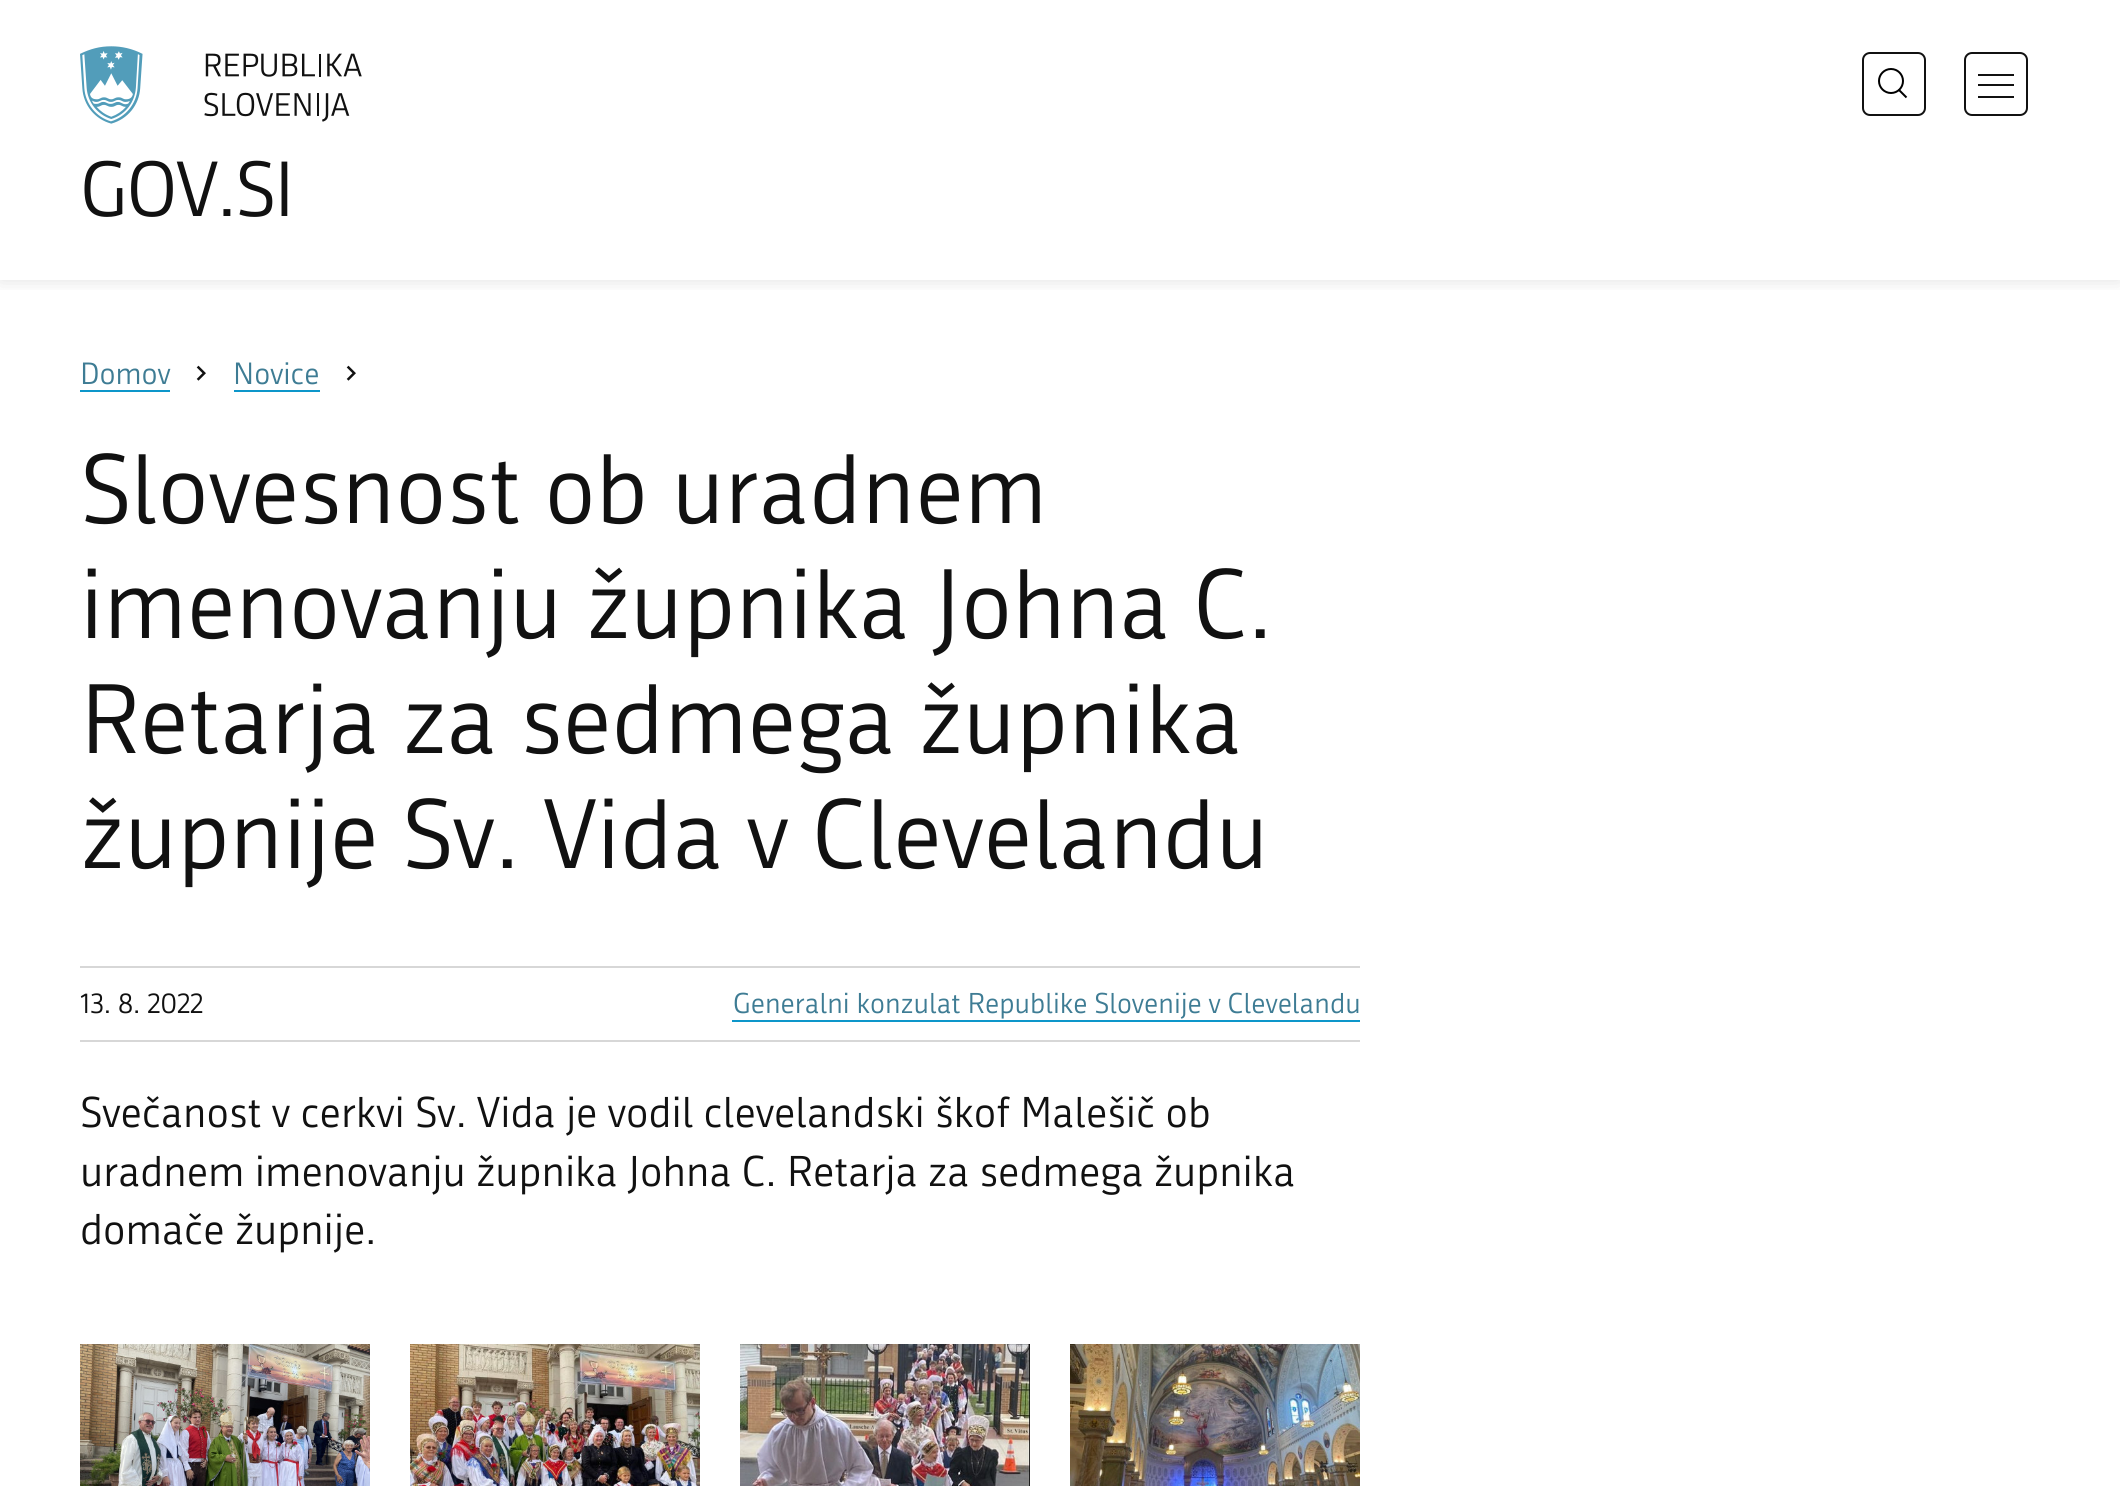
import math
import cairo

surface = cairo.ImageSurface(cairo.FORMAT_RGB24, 2120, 1486)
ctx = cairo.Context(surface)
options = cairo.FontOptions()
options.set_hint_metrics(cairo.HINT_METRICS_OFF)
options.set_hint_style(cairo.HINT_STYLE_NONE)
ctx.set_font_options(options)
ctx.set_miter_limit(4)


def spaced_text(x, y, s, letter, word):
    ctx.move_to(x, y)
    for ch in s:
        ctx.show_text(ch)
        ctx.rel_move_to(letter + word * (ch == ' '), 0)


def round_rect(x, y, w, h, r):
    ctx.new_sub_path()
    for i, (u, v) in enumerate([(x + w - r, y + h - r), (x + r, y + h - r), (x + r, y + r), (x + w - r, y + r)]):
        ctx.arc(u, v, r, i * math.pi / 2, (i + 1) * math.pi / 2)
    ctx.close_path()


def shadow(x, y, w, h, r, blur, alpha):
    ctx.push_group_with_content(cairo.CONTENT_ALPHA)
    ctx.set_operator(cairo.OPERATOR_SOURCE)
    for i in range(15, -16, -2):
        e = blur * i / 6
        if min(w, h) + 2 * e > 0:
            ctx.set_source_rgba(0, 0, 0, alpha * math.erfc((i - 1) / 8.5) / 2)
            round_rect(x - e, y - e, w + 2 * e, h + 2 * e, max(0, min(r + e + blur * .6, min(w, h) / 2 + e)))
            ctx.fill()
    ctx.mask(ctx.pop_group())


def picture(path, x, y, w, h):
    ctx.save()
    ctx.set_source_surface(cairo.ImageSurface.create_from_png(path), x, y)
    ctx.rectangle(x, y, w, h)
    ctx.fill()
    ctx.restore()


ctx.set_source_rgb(1, 1, 1)
ctx.paint()
ctx.save()
ctx.rectangle(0, 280, 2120, 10)
ctx.clip()
ctx.set_source_rgb(0, 0, 0)
shadow(0, 0, 2120, 280, 0, 10, 0.12)
ctx.restore()
round_rect(1863, 53, 62, 62, 7)
ctx.set_source_rgb(0.067, 0.067, 0.067)
ctx.stroke()
ctx.arc(1891, 81, 12, 0, 2 * math.pi)
ctx.set_source_rgb(0, 0, 0)
ctx.stroke()
ctx.new_path()
ctx.move_to(1898.5, 89.5)
ctx.line_to(1906.5, 97.5)
ctx.stroke()
round_rect(1965, 53, 62, 62, 7)
ctx.set_source_rgb(0.067, 0.067, 0.067)
ctx.stroke()
ctx.rectangle(1978, 96, 36, 2)
ctx.fill()
ctx.rectangle(1978, 74, 36, 2)
ctx.fill()
ctx.rectangle(1978, 84, 36, 2)
ctx.fill()
picture("img1.png", 80, 46, 282, 78)
ctx.select_font_face("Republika")
ctx.set_font_size(76)
spaced_text(80, 216, "GOV.SI", -1.5, 0)
ctx.set_font_size(30)
ctx.set_source_rgb(0.243, 0.486, 0.58)
ctx.move_to(80, 384)
ctx.show_text("Domov")
ctx.set_source_rgb(0.051, 0.588, 0.792)
ctx.rectangle(80, 390, 90, 2)
ctx.fill()
picture("img2.png", 196, 365, 10, 16)
ctx.set_source_rgb(0.243, 0.486, 0.58)
ctx.move_to(233, 384)
ctx.show_text("Novice")
ctx.set_source_rgb(0.051, 0.588, 0.792)
ctx.rectangle(234, 390, 86, 2)
ctx.fill()
picture("img2.png", 346, 365, 10, 16)
ctx.set_font_size(96)
ctx.set_source_rgb(0.067, 0.067, 0.067)
ctx.move_to(80, 523)
ctx.show_text("Slovesnost ob uradnem")
ctx.move_to(80, 638)
ctx.show_text("imenovanju župnika Johna C.")
ctx.move_to(80, 753)
ctx.show_text("Retarja za sedmega župnika")
ctx.move_to(80, 868)
ctx.show_text("župnije Sv. Vida v Clevelandu")
ctx.set_source_rgb(0.843, 0.843, 0.843)
ctx.rectangle(80, 966, 1280, 2)
ctx.fill()
ctx.rectangle(80, 1040, 1280, 2)
ctx.fill()
ctx.set_font_size(28)
ctx.set_source_rgb(0.067, 0.067, 0.067)
ctx.move_to(80, 1013)
ctx.show_text("13. 8. 2022")
ctx.set_source_rgb(0.243, 0.486, 0.58)
ctx.move_to(733, 1013)
ctx.show_text("Generalni konzulat Republike Slovenije v Clevelandu")
ctx.set_source_rgb(0.051, 0.588, 0.792)
ctx.rectangle(732, 1020, 628, 2)
ctx.fill()
ctx.set_font_size(42)
ctx.set_source_rgb(0.067, 0.067, 0.067)
ctx.move_to(80, 1127)
ctx.show_text("Svečanost v cerkvi Sv. Vida je vodil clevelandski škof Malešič ob")
ctx.move_to(80, 1186)
ctx.show_text("uradnem imenovanju župnika Johna C. Retarja za sedmega župnika")
ctx.move_to(80, 1244)
ctx.show_text("domače župnije.")
picture("img3.png", 80, 1344, 290, 142)
picture("img4.png", 410, 1344, 290, 142)
picture("img5.png", 740, 1344, 290, 142)
picture("img6.png", 1070, 1344, 290, 142)
surface.write_to_png("page.png")
